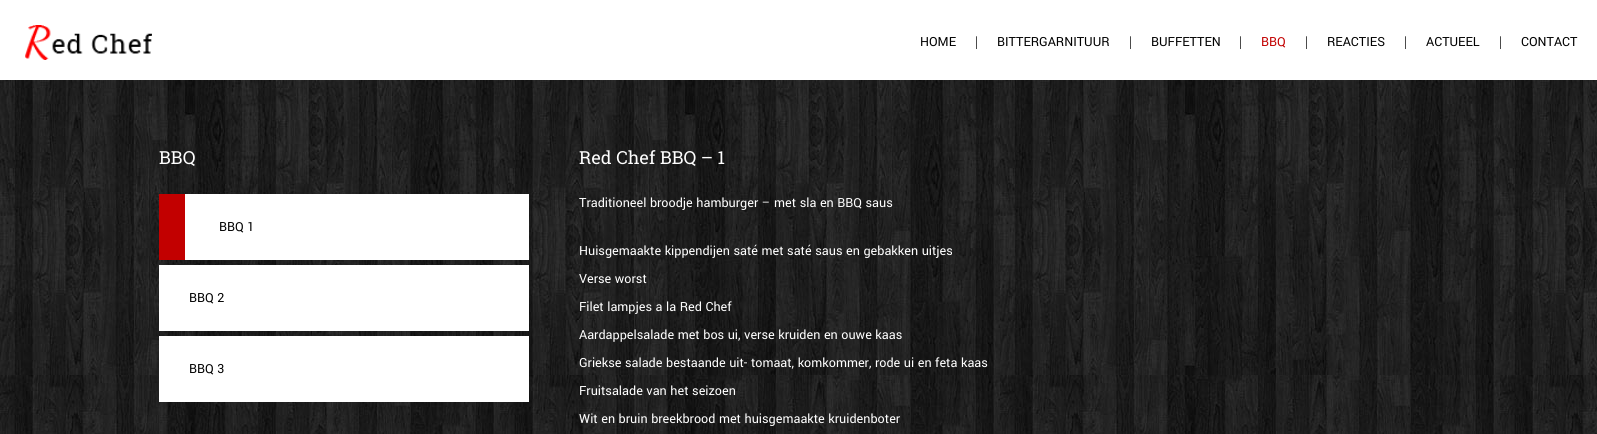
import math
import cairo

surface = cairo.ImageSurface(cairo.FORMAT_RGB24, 1597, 434)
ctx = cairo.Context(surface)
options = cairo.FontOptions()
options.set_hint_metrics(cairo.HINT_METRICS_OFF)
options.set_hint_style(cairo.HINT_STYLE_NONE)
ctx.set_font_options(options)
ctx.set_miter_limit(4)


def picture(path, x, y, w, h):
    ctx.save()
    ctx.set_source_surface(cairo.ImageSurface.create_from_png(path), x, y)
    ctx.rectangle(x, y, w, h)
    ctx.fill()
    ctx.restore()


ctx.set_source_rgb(1, 1, 1)
ctx.paint()
picture("img1.png", 0, 80, 1597, 354)
picture("img2.png", 25, 25, 127, 35)
ctx.select_font_face("Yantramanav")
ctx.set_font_size(14)
ctx.set_source_rgb(0, 0, 0)
ctx.move_to(920, 46)
ctx.show_text("HOME")
ctx.select_font_face("Liberation Serif")
ctx.move_to(975, 46)
ctx.show_text("|")
ctx.select_font_face("Yantramanav")
ctx.move_to(997, 46)
ctx.show_text("BITTERGARNITUUR")
ctx.select_font_face("Liberation Serif")
ctx.move_to(1129, 46)
ctx.show_text("|")
ctx.select_font_face("Yantramanav")
ctx.move_to(1151, 46)
ctx.show_text("BUFFETTEN")
ctx.select_font_face("Liberation Serif")
ctx.move_to(1239, 46)
ctx.show_text("|")
ctx.select_font_face("Yantramanav")
ctx.set_source_rgb(0.761, 0, 0)
ctx.move_to(1261, 46)
ctx.show_text("BBQ")
ctx.select_font_face("Liberation Serif")
ctx.set_source_rgb(0, 0, 0)
ctx.move_to(1305, 46)
ctx.show_text("|")
ctx.select_font_face("Yantramanav")
ctx.move_to(1327, 46)
ctx.show_text("REACTIES")
ctx.select_font_face("Liberation Serif")
ctx.move_to(1404, 46)
ctx.show_text("|")
ctx.select_font_face("Yantramanav")
ctx.move_to(1426, 46)
ctx.show_text("ACTUEEL")
ctx.select_font_face("Liberation Serif")
ctx.move_to(1499, 46)
ctx.show_text("|")
ctx.select_font_face("Yantramanav")
ctx.move_to(1521, 46)
ctx.show_text("CONTACT")
ctx.select_font_face("Roboto Slab")
ctx.set_font_size(18)
ctx.set_source_rgb(1, 1, 1)
ctx.move_to(159, 164)
ctx.show_text("BBQ")
ctx.rectangle(185, 194, 344, 66)
ctx.fill()
ctx.set_source_rgb(0.761, 0, 0)
ctx.rectangle(159, 194, 26, 66)
ctx.fill()
ctx.select_font_face("Yantramanav")
ctx.set_font_size(14)
ctx.set_source_rgb(0, 0, 0)
ctx.move_to(219, 231)
ctx.show_text("BBQ 1")
ctx.set_source_rgb(1, 1, 1)
ctx.rectangle(159, 265, 370, 66)
ctx.fill()
ctx.set_source_rgb(0, 0, 0)
ctx.move_to(189, 302)
ctx.show_text("BBQ 2")
ctx.set_source_rgb(1, 1, 1)
ctx.rectangle(159, 336, 370, 66)
ctx.fill()
ctx.set_source_rgb(0, 0, 0)
ctx.move_to(189, 373)
ctx.show_text("BBQ 3")
ctx.select_font_face("Roboto Slab")
ctx.set_font_size(18)
ctx.set_source_rgb(1, 1, 1)
ctx.move_to(579, 164)
ctx.show_text("Red Chef BBQ – 1")
ctx.select_font_face("Yantramanav")
ctx.set_font_size(14)
ctx.move_to(579, 207)
ctx.show_text("Traditioneel broodje hamburger – met sla en BBQ saus")
ctx.move_to(579, 255)
ctx.show_text("Huisgemaakte kippendijen saté met saté saus en gebakken uitjes")
ctx.move_to(579, 283)
ctx.show_text("Verse worst")
ctx.move_to(579, 311)
ctx.show_text("Filet lampjes a la Red Chef")
ctx.move_to(579, 339)
ctx.show_text("Aardappelsalade met bos ui, verse kruiden en ouwe kaas")
ctx.move_to(579, 367)
ctx.show_text("Griekse salade bestaande uit- tomaat, komkommer, rode ui en feta kaas")
ctx.move_to(579, 395)
ctx.show_text("Fruitsalade van het seizoen")
ctx.move_to(579, 423)
ctx.show_text("Wit en bruin breekbrood met huisgemaakte kruidenboter")
surface.write_to_png("page.png")
